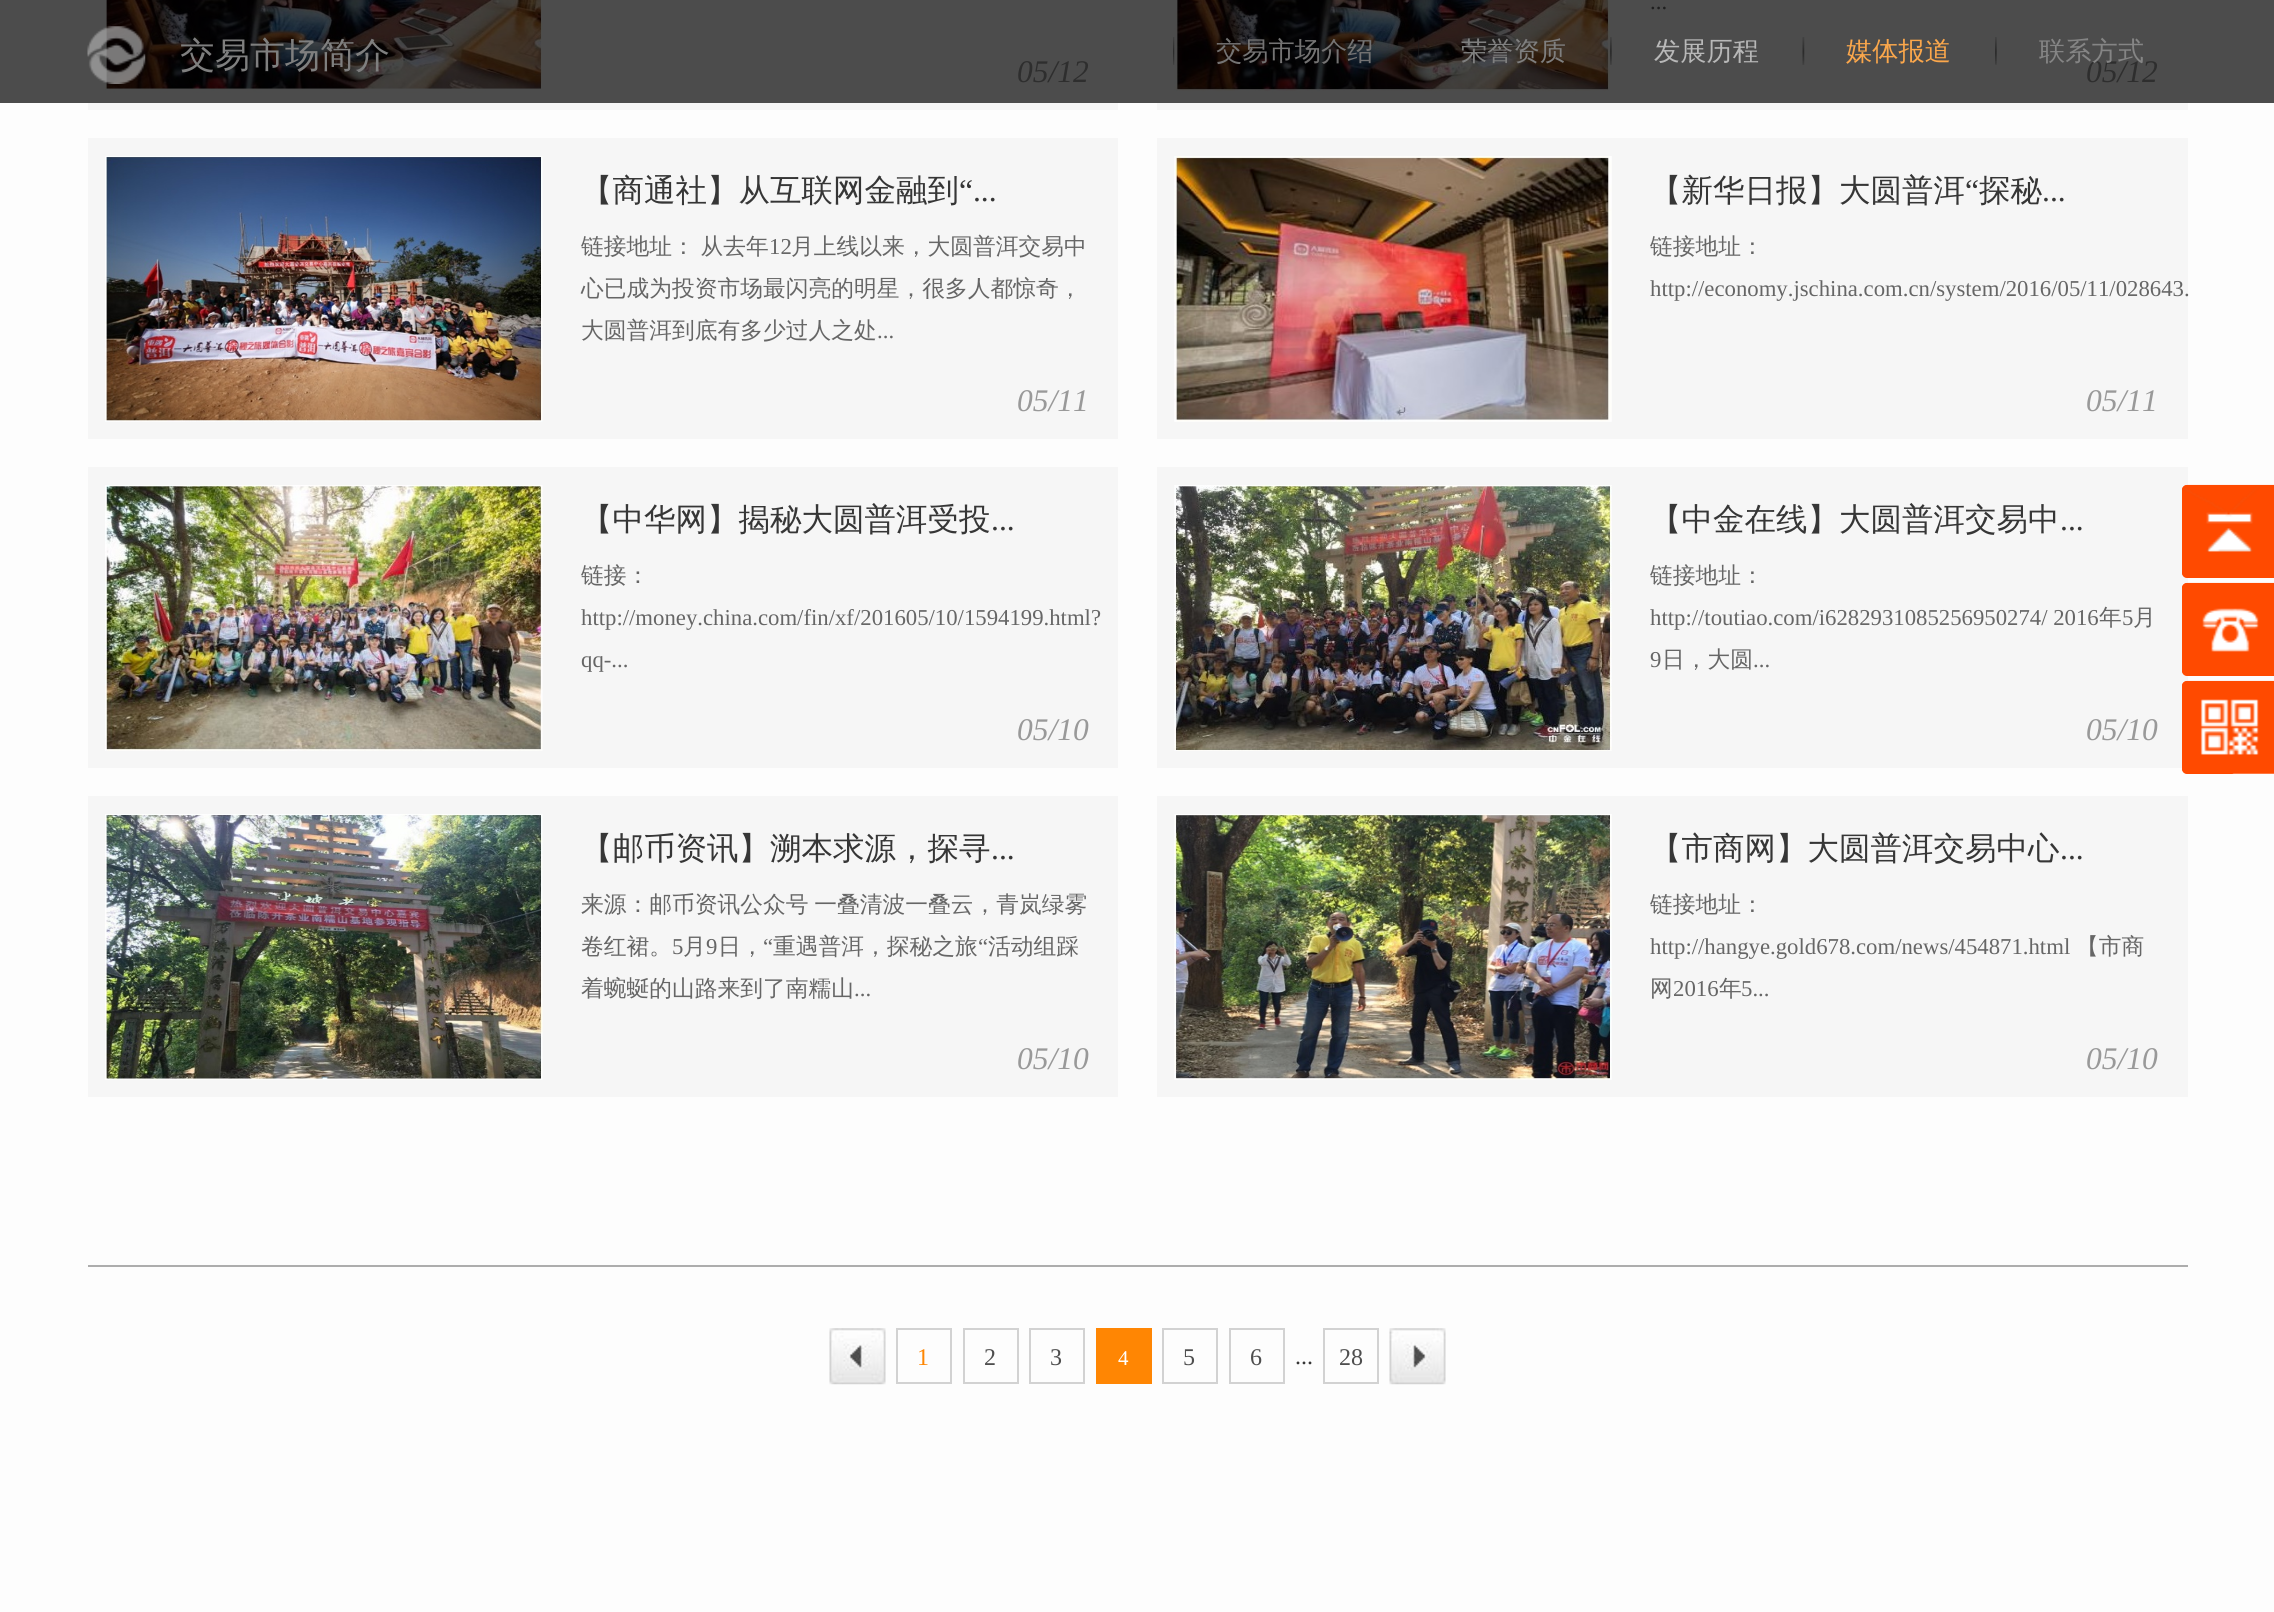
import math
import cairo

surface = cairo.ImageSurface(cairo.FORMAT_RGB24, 2274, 1612)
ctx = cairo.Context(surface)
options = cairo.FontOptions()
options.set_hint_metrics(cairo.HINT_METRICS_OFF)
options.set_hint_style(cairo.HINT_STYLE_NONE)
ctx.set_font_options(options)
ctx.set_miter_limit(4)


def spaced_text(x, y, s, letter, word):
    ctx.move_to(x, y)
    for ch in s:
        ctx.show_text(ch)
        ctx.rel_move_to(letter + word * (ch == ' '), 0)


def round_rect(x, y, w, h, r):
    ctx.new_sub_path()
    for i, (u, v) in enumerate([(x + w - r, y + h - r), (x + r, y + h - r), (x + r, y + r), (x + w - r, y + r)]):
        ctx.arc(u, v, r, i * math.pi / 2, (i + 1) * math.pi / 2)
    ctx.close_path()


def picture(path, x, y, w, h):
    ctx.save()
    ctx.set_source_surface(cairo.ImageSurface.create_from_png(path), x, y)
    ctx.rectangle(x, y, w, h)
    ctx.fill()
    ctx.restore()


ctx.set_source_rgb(0.992, 0.992, 0.992)
ctx.paint()
ctx.set_source_rgb(0.298, 0.298, 0.298)
ctx.rectangle(0, 0, 2274, 103)
ctx.fill()
ctx.set_source_rgb(0.961, 0.961, 0.961)
ctx.rectangle(88, 103, 1030, 7)
ctx.fill()
picture("img1.png", 105, 0, 438, 93)
ctx.select_font_face("Liberation Serif", cairo.FONT_SLANT_ITALIC)
ctx.set_font_size(31.5)
ctx.set_source_rgb(0.18, 0.18, 0.18)
ctx.move_to(1017, 82)
ctx.show_text("05/12")
ctx.set_source_rgb(0.961, 0.961, 0.961)
ctx.rectangle(1157, 103, 1031, 7)
ctx.fill()
picture("img2.png", 1174, 0, 438, 93)
ctx.select_font_face("Liberation Serif")
ctx.set_font_size(22.75)
ctx.set_source_rgb(0.122, 0.122, 0.122)
ctx.move_to(1650, 9)
ctx.show_text("...")
ctx.select_font_face("Liberation Serif", cairo.FONT_SLANT_ITALIC)
ctx.set_font_size(31.5)
ctx.set_source_rgb(0.18, 0.18, 0.18)
ctx.move_to(2086, 82)
ctx.show_text("05/12")
ctx.set_source_rgb(0.961, 0.961, 0.961)
ctx.rectangle(88, 138, 1030, 301)
ctx.fill()
picture("img3.png", 105, 156, 438, 266)
ctx.select_font_face("WenQuanYi Zen Hei Medium")
ctx.set_source_rgb(0.212, 0.212, 0.212)
ctx.move_to(581, 201)
ctx.show_text("【商通社】从互联网金融到")
ctx.select_font_face("Liberation Serif")
ctx.move_to(959, 201)
ctx.show_text("“...")
ctx.select_font_face("WenQuanYi Zen Hei Medium")
ctx.set_font_size(22.75)
ctx.set_source_rgb(0.4, 0.4, 0.4)
spaced_text(581, 254, "链接地址： 从去年", 0, -1)
ctx.select_font_face("Liberation Serif")
ctx.move_to(769, 254)
ctx.show_text("12")
ctx.select_font_face("WenQuanYi Zen Hei Medium")
ctx.move_to(791, 254)
ctx.show_text("月上线以来，大圆普洱交易中")
ctx.move_to(581, 296)
ctx.show_text("心已成为投资市场最闪亮的明星，很多人都惊奇，")
ctx.move_to(581, 338)
ctx.show_text("大圆普洱到底有多少过人之处")
ctx.select_font_face("Liberation Serif")
ctx.move_to(877, 338)
ctx.show_text("...")
ctx.select_font_face("Liberation Serif", cairo.FONT_SLANT_ITALIC)
ctx.set_font_size(31.5)
ctx.set_source_rgb(0.6, 0.6, 0.6)
ctx.move_to(1017, 411)
ctx.show_text("05/11")
ctx.set_source_rgb(0.961, 0.961, 0.961)
ctx.rectangle(1157, 138, 1031, 301)
ctx.fill()
picture("img4.png", 1174, 156, 438, 266)
ctx.select_font_face("WenQuanYi Zen Hei Medium")
ctx.set_source_rgb(0.212, 0.212, 0.212)
ctx.move_to(1650, 201)
ctx.show_text("【新华日报】大圆普洱")
ctx.select_font_face("Liberation Serif")
ctx.move_to(1965, 201)
ctx.show_text("“")
ctx.select_font_face("WenQuanYi Zen Hei Medium")
ctx.move_to(1979, 201)
ctx.show_text("探秘")
ctx.select_font_face("Liberation Serif")
ctx.move_to(2042, 201)
ctx.show_text("...")
ctx.select_font_face("WenQuanYi Zen Hei Medium")
ctx.set_font_size(22.75)
ctx.set_source_rgb(0.4, 0.4, 0.4)
ctx.move_to(1650, 254)
ctx.show_text("链接地址：")
ctx.select_font_face("Liberation Serif")
ctx.move_to(1650, 296)
ctx.show_text("http://economy.jschina.com.cn/system/2016/05/11/028643.")
ctx.select_font_face("Liberation Serif", cairo.FONT_SLANT_ITALIC)
ctx.set_font_size(31.5)
ctx.set_source_rgb(0.6, 0.6, 0.6)
ctx.move_to(2086, 411)
ctx.show_text("05/11")
ctx.set_source_rgb(0.961, 0.961, 0.961)
ctx.rectangle(88, 467, 1030, 301)
ctx.fill()
picture("img5.png", 105, 485, 438, 266)
ctx.select_font_face("WenQuanYi Zen Hei Medium")
ctx.set_source_rgb(0.212, 0.212, 0.212)
ctx.move_to(581, 530)
ctx.show_text("【中华网】揭秘大圆普洱受投")
ctx.select_font_face("Liberation Serif")
ctx.move_to(991, 530)
ctx.show_text("...")
ctx.select_font_face("WenQuanYi Zen Hei Medium")
ctx.set_font_size(22.75)
ctx.set_source_rgb(0.4, 0.4, 0.4)
ctx.move_to(581, 583)
ctx.show_text("链接：")
ctx.select_font_face("Liberation Serif")
ctx.move_to(581, 625)
ctx.show_text("http://money.china.com/fin/xf/201605/10/1594199.html?")
ctx.move_to(581, 667)
ctx.show_text("qq-...")
ctx.select_font_face("Liberation Serif", cairo.FONT_SLANT_ITALIC)
ctx.set_font_size(31.5)
ctx.set_source_rgb(0.6, 0.6, 0.6)
ctx.move_to(1017, 740)
ctx.show_text("05/10")
ctx.set_source_rgb(0.961, 0.961, 0.961)
ctx.rectangle(1157, 467, 1031, 301)
ctx.fill()
picture("img6.png", 1174, 485, 438, 266)
ctx.select_font_face("WenQuanYi Zen Hei Medium")
ctx.set_source_rgb(0.212, 0.212, 0.212)
ctx.move_to(1650, 530)
ctx.show_text("【中金在线】大圆普洱交易中")
ctx.select_font_face("Liberation Serif")
ctx.move_to(2060, 530)
ctx.show_text("...")
ctx.select_font_face("WenQuanYi Zen Hei Medium")
ctx.set_font_size(22.75)
ctx.set_source_rgb(0.4, 0.4, 0.4)
ctx.move_to(1650, 583)
ctx.show_text("链接地址：")
ctx.select_font_face("Liberation Serif")
ctx.move_to(1650, 625)
ctx.show_text("http://toutiao.com/i6282931085256950274/ 2016")
ctx.select_font_face("WenQuanYi Zen Hei Medium")
ctx.move_to(2099, 625)
ctx.show_text("年")
ctx.select_font_face("Liberation Serif")
ctx.move_to(2122, 625)
ctx.show_text("5")
ctx.select_font_face("WenQuanYi Zen Hei Medium")
ctx.move_to(2133, 625)
ctx.show_text("月")
ctx.select_font_face("Liberation Serif")
ctx.move_to(1650, 667)
ctx.show_text("9")
ctx.select_font_face("WenQuanYi Zen Hei Medium")
ctx.move_to(1662, 667)
ctx.show_text("日，大圆")
ctx.select_font_face("Liberation Serif")
ctx.move_to(1753, 667)
ctx.show_text("...")
ctx.select_font_face("Liberation Serif", cairo.FONT_SLANT_ITALIC)
ctx.set_font_size(31.5)
ctx.set_source_rgb(0.6, 0.6, 0.6)
ctx.move_to(2086, 740)
ctx.show_text("05/10")
ctx.set_source_rgb(0.961, 0.961, 0.961)
ctx.rectangle(88, 796, 1030, 301)
ctx.fill()
picture("img7.png", 105, 814, 438, 266)
ctx.select_font_face("WenQuanYi Zen Hei Medium")
ctx.set_source_rgb(0.212, 0.212, 0.212)
ctx.move_to(581, 859)
ctx.show_text("【邮币资讯】溯本求源，探寻")
ctx.select_font_face("Liberation Serif")
ctx.move_to(991, 859)
ctx.show_text("...")
ctx.select_font_face("WenQuanYi Zen Hei Medium")
ctx.set_font_size(22.75)
ctx.set_source_rgb(0.4, 0.4, 0.4)
spaced_text(581, 912, "来源：邮币资讯公众号 一叠清波一叠云，青岚绿雾", 0, -1)
ctx.move_to(581, 954)
ctx.show_text("卷红裙。")
ctx.select_font_face("Liberation Serif")
ctx.move_to(672, 954)
ctx.show_text("5")
ctx.select_font_face("WenQuanYi Zen Hei Medium")
ctx.move_to(683, 954)
ctx.show_text("月")
ctx.select_font_face("Liberation Serif")
ctx.move_to(706, 954)
ctx.show_text("9")
ctx.select_font_face("WenQuanYi Zen Hei Medium")
ctx.move_to(718, 954)
ctx.show_text("日，")
ctx.select_font_face("Liberation Serif")
ctx.move_to(763, 954)
ctx.show_text("“")
ctx.select_font_face("WenQuanYi Zen Hei Medium")
ctx.move_to(773, 954)
ctx.show_text("重遇普洱，探秘之旅")
ctx.select_font_face("Liberation Serif")
ctx.move_to(978, 954)
ctx.show_text("“")
ctx.select_font_face("WenQuanYi Zen Hei Medium")
ctx.move_to(988, 954)
ctx.show_text("活动组踩")
ctx.move_to(581, 996)
ctx.show_text("着蜿蜒的山路来到了南糯山")
ctx.select_font_face("Liberation Serif")
ctx.move_to(854, 996)
ctx.show_text("...")
ctx.select_font_face("Liberation Serif", cairo.FONT_SLANT_ITALIC)
ctx.set_font_size(31.5)
ctx.set_source_rgb(0.6, 0.6, 0.6)
ctx.move_to(1017, 1069)
ctx.show_text("05/10")
ctx.set_source_rgb(0.961, 0.961, 0.961)
ctx.rectangle(1157, 796, 1031, 301)
ctx.fill()
picture("img8.png", 1174, 814, 438, 266)
ctx.select_font_face("WenQuanYi Zen Hei Medium")
ctx.set_source_rgb(0.212, 0.212, 0.212)
ctx.move_to(1650, 859)
ctx.show_text("【市商网】大圆普洱交易中心")
ctx.select_font_face("Liberation Serif")
ctx.move_to(2060, 859)
ctx.show_text("...")
ctx.select_font_face("WenQuanYi Zen Hei Medium")
ctx.set_font_size(22.75)
ctx.set_source_rgb(0.4, 0.4, 0.4)
ctx.move_to(1650, 912)
ctx.show_text("链接地址：")
ctx.select_font_face("Liberation Serif")
ctx.move_to(1650, 954)
ctx.show_text("http://hangye.gold678.com/news/454871.html")
ctx.select_font_face("WenQuanYi Zen Hei Medium")
ctx.move_to(2076, 954)
ctx.show_text("【市商")
ctx.move_to(1650, 996)
ctx.show_text("网")
ctx.select_font_face("Liberation Serif")
ctx.move_to(1673, 996)
ctx.show_text("2016")
ctx.select_font_face("WenQuanYi Zen Hei Medium")
ctx.move_to(1719, 996)
ctx.show_text("年")
ctx.select_font_face("Liberation Serif")
ctx.move_to(1741, 996)
ctx.show_text("5...")
ctx.select_font_face("Liberation Serif", cairo.FONT_SLANT_ITALIC)
ctx.set_font_size(31.5)
ctx.set_source_rgb(0.6, 0.6, 0.6)
ctx.move_to(2086, 1069)
ctx.show_text("05/10")
ctx.set_source_rgb(0.678, 0.678, 0.678)
ctx.rectangle(88, 1265, 2100, 2)
ctx.fill()
picture("img9.png", 829, 1328, 57, 57)
ctx.rectangle(897, 1329, 54, 54)
ctx.set_source_rgb(0.824, 0.824, 0.824)
ctx.stroke()
ctx.select_font_face("Liberation Serif")
ctx.set_font_size(24)
ctx.set_source_rgb(0.996, 0.525, 0.008)
ctx.move_to(917, 1365)
ctx.show_text("1")
ctx.rectangle(964, 1329, 54, 54)
ctx.set_source_rgb(0.824, 0.824, 0.824)
ctx.stroke()
ctx.set_source_rgb(0.306, 0.306, 0.306)
ctx.move_to(984, 1365)
ctx.show_text("2")
ctx.rectangle(1030, 1329, 54, 54)
ctx.set_source_rgb(0.824, 0.824, 0.824)
ctx.stroke()
ctx.set_source_rgb(0.306, 0.306, 0.306)
ctx.move_to(1050, 1365)
ctx.show_text("3")
ctx.set_source_rgb(1, 0.525, 0.012)
ctx.rectangle(1096, 1328, 56, 56)
ctx.fill()
ctx.set_font_size(21)
ctx.set_source_rgb(1, 1, 1)
ctx.move_to(1118, 1365)
ctx.show_text("4")
ctx.rectangle(1163, 1329, 54, 54)
ctx.set_source_rgb(0.824, 0.824, 0.824)
ctx.stroke()
ctx.set_font_size(24)
ctx.set_source_rgb(0.306, 0.306, 0.306)
ctx.move_to(1183, 1365)
ctx.show_text("5")
ctx.rectangle(1230, 1329, 54, 54)
ctx.set_source_rgb(0.824, 0.824, 0.824)
ctx.stroke()
ctx.set_source_rgb(0.306, 0.306, 0.306)
ctx.move_to(1250, 1365)
ctx.show_text("6")
ctx.set_source_rgb(0.212, 0.212, 0.212)
ctx.move_to(1295, 1364)
ctx.show_text("...")
ctx.rectangle(1324, 1329, 54, 54)
ctx.set_source_rgb(0.824, 0.824, 0.824)
ctx.stroke()
ctx.set_source_rgb(0.306, 0.306, 0.306)
ctx.move_to(1339, 1365)
ctx.show_text("28")
picture("img10.png", 1389, 1328, 57, 57)
picture("img11.png", 87, 26, 59, 58)
ctx.select_font_face("WenQuanYi Zen Hei Medium")
ctx.set_font_size(35)
ctx.set_source_rgb(0.498, 0.498, 0.498)
ctx.move_to(180, 67)
ctx.show_text("交易市场简介")
picture("img12.png", 1173, 37, 2, 28)
ctx.set_font_size(26.25)
ctx.set_source_rgb(0.455, 0.451, 0.451)
ctx.move_to(1216, 60)
ctx.show_text("交易市场介绍")
picture("img13.png", 1418, 37, 2, 22)
ctx.set_source_rgb(0.498, 0.498, 0.498)
ctx.move_to(1461, 60)
ctx.show_text("荣誉资质")
picture("img14.png", 1610, 37, 2, 28)
ctx.set_source_rgb(0.722, 0.722, 0.722)
ctx.move_to(1654, 60)
ctx.show_text("发展历程")
picture("img15.png", 1802, 37, 3, 28)
ctx.set_source_rgb(0.984, 0.655, 0.294)
ctx.move_to(1846, 60)
ctx.show_text("媒体报道")
picture("img16.png", 1995, 37, 2, 28)
ctx.set_source_rgb(0.522, 0.522, 0.522)
ctx.move_to(2039, 60)
ctx.show_text("联系方式")
ctx.set_source_rgb(1, 0.29, 0)
round_rect(2182, 485, 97, 93, 5)
ctx.fill()
picture("img17.png", 2182, 484, 92, 94)
round_rect(2182, 583, 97, 93, 5)
ctx.fill()
picture("img18.png", 2182, 582, 92, 94)
round_rect(2182, 681, 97, 93, 5)
ctx.fill()
picture("img19.png", 2182, 680, 92, 94)
picture("img20.png", 2232, 773, 42, 1)
surface.write_to_png("page.png")
